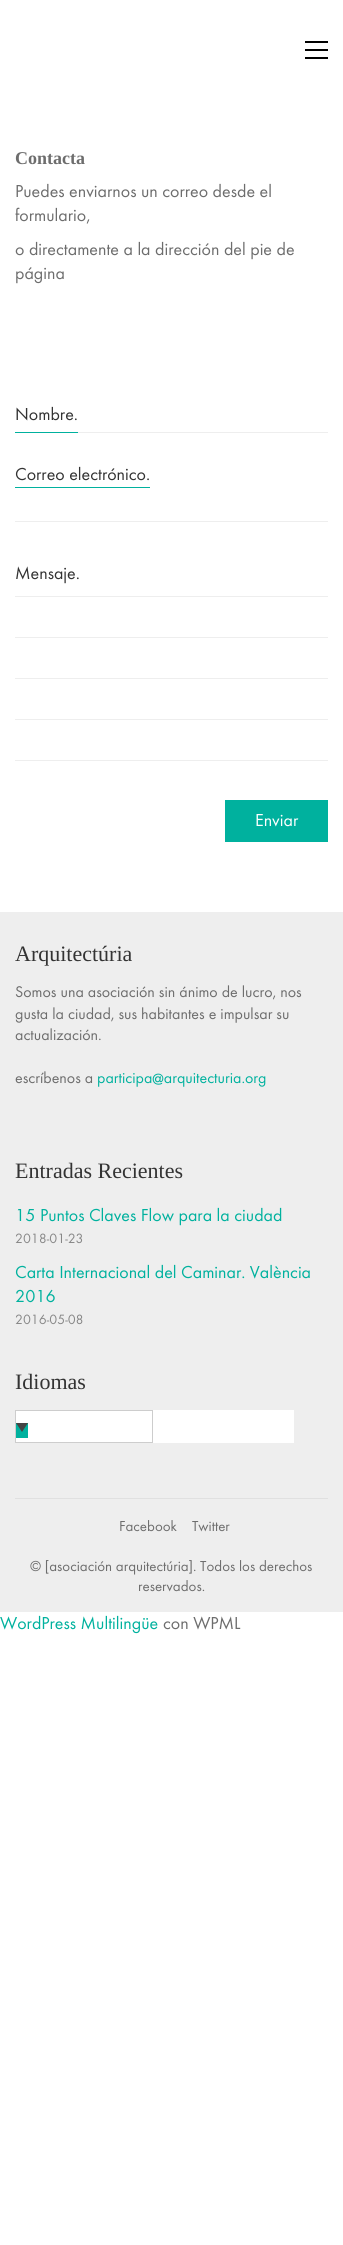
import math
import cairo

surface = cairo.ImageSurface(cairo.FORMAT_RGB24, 343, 2245)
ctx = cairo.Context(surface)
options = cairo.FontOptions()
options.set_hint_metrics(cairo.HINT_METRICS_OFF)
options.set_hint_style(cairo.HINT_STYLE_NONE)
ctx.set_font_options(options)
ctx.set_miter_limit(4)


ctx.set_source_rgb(1, 1, 1)
ctx.paint()
ctx.set_source_rgb(0, 0, 0)
ctx.rectangle(305, 41, 23, 2)
ctx.fill()
ctx.rectangle(305, 49, 23, 2)
ctx.fill()
ctx.rectangle(305, 57, 23, 2)
ctx.fill()
ctx.select_font_face("Liberation Serif", cairo.FONT_SLANT_NORMAL, cairo.FONT_WEIGHT_BOLD)
ctx.set_font_size(18)
ctx.set_source_rgb(0.427, 0.427, 0.427)
ctx.move_to(15, 164)
ctx.show_text("Contacta")
ctx.select_font_face("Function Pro")
ctx.move_to(15, 197)
ctx.show_text("Puedes enviarnos un correo desde el")
ctx.move_to(15, 221)
ctx.show_text("formulario,")
ctx.move_to(15, 255)
ctx.show_text("o directamente a la dirección del pie de")
ctx.move_to(15, 279)
ctx.show_text("página")
ctx.set_source_rgb(0, 0.694, 0.62)
ctx.rectangle(15, 432, 63, 1)
ctx.fill()
ctx.set_source_rgb(0.2, 0.2, 0.2)
ctx.move_to(15, 420)
ctx.show_text("Nombre.")
ctx.set_source_rgb(0.933, 0.933, 0.933)
ctx.rectangle(78, 432, 250, 1)
ctx.fill()
ctx.set_source_rgb(0, 0.694, 0.62)
ctx.rectangle(15, 487, 135, 1)
ctx.fill()
ctx.set_source_rgb(0.2, 0.2, 0.2)
ctx.move_to(15, 480)
ctx.show_text("Correo electrónico.")
ctx.set_source_rgb(0.933, 0.933, 0.933)
ctx.rectangle(15, 521, 313, 1)
ctx.fill()
ctx.set_source_rgb(0.2, 0.2, 0.2)
ctx.move_to(15, 579)
ctx.show_text("Mensaje.")
ctx.set_source_rgb(0.933, 0.933, 0.933)
ctx.rectangle(15, 596, 313, 1)
ctx.fill()
ctx.rectangle(15, 637, 313, 1)
ctx.fill()
ctx.rectangle(15, 678, 313, 1)
ctx.fill()
ctx.rectangle(15, 719, 313, 1)
ctx.fill()
ctx.rectangle(15, 760, 313, 1)
ctx.fill()
ctx.set_source_rgb(0, 0.694, 0.62)
ctx.rectangle(225, 800, 103, 42)
ctx.fill()
ctx.set_source_rgb(1, 1, 1)
ctx.move_to(255, 826)
ctx.show_text("Enviar")
ctx.set_source_rgb(0.933, 0.933, 0.933)
ctx.rectangle(0, 912, 343, 700)
ctx.fill()
ctx.select_font_face("Liberation Serif")
ctx.set_font_size(22)
ctx.set_source_rgb(0.2, 0.2, 0.2)
ctx.move_to(15, 961)
ctx.show_text("Arquitectúria")
ctx.select_font_face("Function Pro")
ctx.set_font_size(16)
ctx.set_source_rgb(0.427, 0.427, 0.427)
ctx.move_to(15, 997)
ctx.show_text("Somos una asociación sin ánimo de lucro, nos")
ctx.move_to(15, 1019)
ctx.show_text("gusta la ciudad, sus habitantes e impulsar su")
ctx.move_to(15, 1040)
ctx.show_text("actualización.")
ctx.move_to(15, 1083)
ctx.show_text("escríbenos a")
ctx.set_source_rgb(0, 0.694, 0.62)
ctx.move_to(97, 1083)
ctx.show_text("participa@arquitecturia.org")
ctx.select_font_face("Liberation Serif")
ctx.set_font_size(22)
ctx.set_source_rgb(0.2, 0.2, 0.2)
ctx.move_to(15, 1178)
ctx.show_text("Entradas Recientes")
ctx.select_font_face("Function Pro")
ctx.set_font_size(18)
ctx.set_source_rgb(0, 0.694, 0.62)
ctx.move_to(15, 1221)
ctx.show_text("15 Puntos Claves Flow para la ciudad")
ctx.set_font_size(14)
ctx.set_source_rgb(0.529, 0.529, 0.529)
ctx.move_to(15, 1243)
ctx.show_text("2018-01-23")
ctx.set_font_size(18)
ctx.set_source_rgb(0, 0.694, 0.62)
ctx.move_to(15, 1278)
ctx.show_text("Carta Internacional del Caminar. València")
ctx.move_to(15, 1302)
ctx.show_text("2016")
ctx.set_font_size(14)
ctx.set_source_rgb(0.529, 0.529, 0.529)
ctx.move_to(15, 1324)
ctx.show_text("2016-05-08")
ctx.select_font_face("Liberation Serif")
ctx.set_font_size(22)
ctx.set_source_rgb(0.2, 0.2, 0.2)
ctx.move_to(15, 1389)
ctx.show_text("Idiomas")
ctx.set_source_rgb(1, 1, 1)
ctx.rectangle(16, 1410, 278, 33)
ctx.fill()
ctx.rectangle(15.5, 1410.5, 137, 32)
ctx.set_source_rgb(0.804, 0.804, 0.804)
ctx.set_line_width(1)
ctx.stroke()
ctx.set_source_rgb(0, 0.694, 0.62)
ctx.rectangle(16, 1423, 12, 15)
ctx.fill()
ctx.set_source_rgb(0.267, 0.267, 0.267)
ctx.new_path()
ctx.move_to(16, 1423)
ctx.line_to(28, 1423)
ctx.line_to(22, 1432)
ctx.close_path()
ctx.fill()
ctx.set_source_rgb(0.878, 0.878, 0.878)
ctx.rectangle(15, 1498, 313, 1)
ctx.fill()
ctx.select_font_face("Function Pro")
ctx.set_font_size(15)
ctx.set_source_rgb(0.427, 0.427, 0.427)
ctx.move_to(119, 1531)
ctx.show_text("Facebook")
ctx.move_to(192, 1531)
ctx.show_text("Twitter")
ctx.move_to(30, 1571)
ctx.show_text("© [asociación arquitectúria]. Todos los derechos")
ctx.move_to(138, 1591)
ctx.show_text("reservados.")
ctx.set_font_size(18)
ctx.set_source_rgb(0, 0.694, 0.62)
ctx.move_to(0, 1629)
ctx.show_text("WordPress Multilingüe")
ctx.set_source_rgb(0.427, 0.427, 0.427)
ctx.move_to(163, 1629)
ctx.show_text("con WPML")
surface.write_to_png("page.png")
